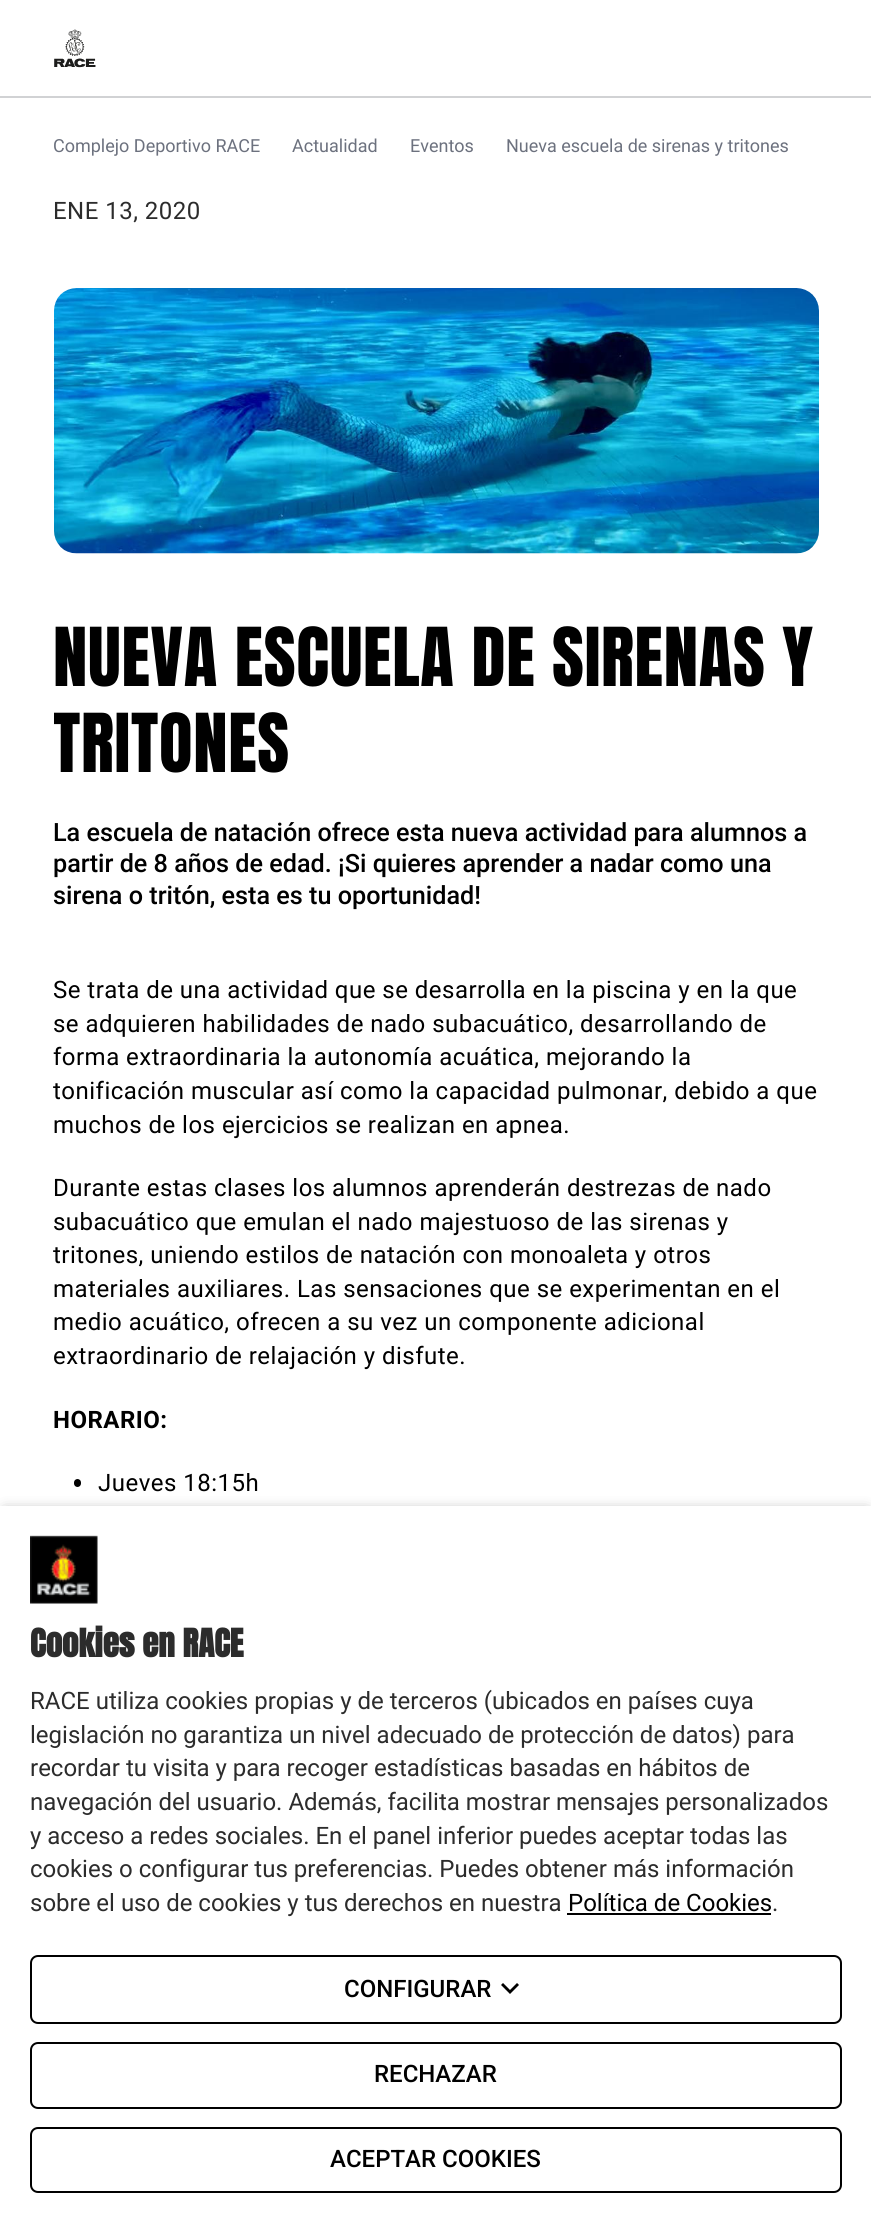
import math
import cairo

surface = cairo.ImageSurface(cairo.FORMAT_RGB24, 871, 2222)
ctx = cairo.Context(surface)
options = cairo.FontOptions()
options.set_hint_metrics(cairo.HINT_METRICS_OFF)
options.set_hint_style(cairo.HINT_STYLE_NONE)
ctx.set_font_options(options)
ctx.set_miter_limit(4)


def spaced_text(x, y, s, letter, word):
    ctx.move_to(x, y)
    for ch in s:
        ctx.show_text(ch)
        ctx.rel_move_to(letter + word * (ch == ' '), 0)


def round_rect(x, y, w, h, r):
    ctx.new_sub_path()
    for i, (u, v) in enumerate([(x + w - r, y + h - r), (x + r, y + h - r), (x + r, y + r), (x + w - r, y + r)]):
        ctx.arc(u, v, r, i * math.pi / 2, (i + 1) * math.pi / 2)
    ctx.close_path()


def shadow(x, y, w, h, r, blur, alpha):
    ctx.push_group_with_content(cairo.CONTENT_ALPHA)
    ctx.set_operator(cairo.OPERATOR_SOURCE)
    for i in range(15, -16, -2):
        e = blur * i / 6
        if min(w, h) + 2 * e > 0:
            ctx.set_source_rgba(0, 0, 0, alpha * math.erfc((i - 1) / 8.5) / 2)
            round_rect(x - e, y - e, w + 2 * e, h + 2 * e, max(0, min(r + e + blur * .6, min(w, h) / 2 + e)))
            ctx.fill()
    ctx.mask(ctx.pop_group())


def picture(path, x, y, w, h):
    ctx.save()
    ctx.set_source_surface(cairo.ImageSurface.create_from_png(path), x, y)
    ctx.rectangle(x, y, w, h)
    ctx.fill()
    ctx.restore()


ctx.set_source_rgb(1, 1, 1)
ctx.paint()
ctx.set_source_rgb(0.82, 0.824, 0.831)
ctx.rectangle(0, 96, 871, 2)
ctx.fill()
picture("img1.png", 54, 29, 42, 39)
ctx.select_font_face("Roboto")
ctx.set_font_size(18)
ctx.set_source_rgb(0.424, 0.443, 0.494)
ctx.move_to(53, 152)
ctx.show_text("Complejo Deportivo RACE")
ctx.move_to(292, 152)
ctx.show_text("Actualidad")
ctx.move_to(410, 152)
ctx.show_text("Eventos")
ctx.move_to(506, 152)
ctx.show_text("Nueva escuela de sirenas y tritones")
ctx.set_font_size(24)
ctx.set_source_rgb(0.173, 0.173, 0.173)
spaced_text(53, 219, "ENE 13, 2020", 0.48, 0)
picture("img2.png", 54, 288, 765, 266)
ctx.select_font_face("Anton")
ctx.set_font_size(69)
ctx.set_source_rgb(0, 0, 0)
spaced_text(53, 686, "NUEVA ESCUELA DE SIRENAS Y", 0.7, 0)
ctx.save()
ctx.rectangle(54, 614, 765, 172)
ctx.clip()
spaced_text(53, 772, "TRITONES", 0.7, 0)
ctx.restore()
ctx.select_font_face("Roboto Medium")
ctx.set_font_size(25.2)
ctx.move_to(53, 841)
ctx.show_text("La escuela de natación ofrece esta nueva actividad para alumnos a")
ctx.move_to(53, 872)
ctx.show_text("partir de 8 años de edad. ¡Si quieres aprender a nadar como una")
ctx.move_to(53, 904)
ctx.show_text("sirena o tritón, esta es tu oportunidad!")
ctx.select_font_face("Roboto")
ctx.set_font_size(24)
spaced_text(53, 998, "Se trata de una actividad que se desarrolla en la piscina y en la que", 0.48, 0)
spaced_text(53, 1032, "se adquieren habilidades de nado subacuático, desarrollando de", 0.48, 0)
spaced_text(53, 1065, "forma extraordinaria la autonomía acuática, mejorando la", 0.48, 0)
spaced_text(53, 1099, "tonificación muscular así como la capacidad pulmonar, debido a que", 0.48, 0)
spaced_text(53, 1133, "muchos de los ejercicios se realizan en apnea.", 0.48, 0)
spaced_text(53, 1196, "Durante estas clases los alumnos aprenderán destrezas de nado", 0.48, 0)
spaced_text(53, 1230, "subacuático que emulan el nado majestuoso de las sirenas y", 0.48, 0)
spaced_text(53, 1263, "tritones, uniendo estilos de natación con monoaleta y otros", 0.48, 0)
spaced_text(53, 1297, "materiales auxiliares. Las sensaciones que se experimentan en el", 0.48, 0)
spaced_text(53, 1330, "medio acuático, ofrecen a su vez un componente adicional", 0.48, 0)
spaced_text(53, 1364, "extraordinario de relajación y disfute.", 0.48, 0)
ctx.select_font_face("Roboto", cairo.FONT_SLANT_NORMAL, cairo.FONT_WEIGHT_BOLD)
spaced_text(53, 1428, "HORARIO:", 0.48, 0)
round_rect(74, 1479, 7, 8, 3.5)
ctx.fill()
ctx.select_font_face("Roboto")
spaced_text(98, 1491, "Jueves 18:15h", 0.48, 0)
ctx.set_source_rgb(0, 0, 0)
shadow(5, 1511, 862, 708, 0, 7, 0.37)
ctx.set_source_rgb(1, 1, 1)
ctx.rectangle(0, 1506, 871, 716)
ctx.fill()
picture("img3.png", 30, 1535, 68, 69)
ctx.select_font_face("Anton", cairo.FONT_SLANT_NORMAL, cairo.FONT_WEIGHT_BOLD)
ctx.set_font_size(33)
ctx.set_source_rgb(0.173, 0.173, 0.173)
ctx.move_to(30, 1657)
ctx.show_text("Cookies en RACE")
ctx.select_font_face("Roboto")
ctx.set_font_size(24)
ctx.move_to(30, 1709)
ctx.show_text("RACE utiliza cookies propias y de terceros (ubicados en países cuya")
ctx.move_to(30, 1743)
ctx.show_text("legislación no garantiza un nivel adecuado de protección de datos) para")
ctx.move_to(30, 1776)
ctx.show_text("recordar tu visita y para recoger estadísticas basadas en hábitos de")
ctx.move_to(30, 1810)
ctx.show_text("navegación del usuario. Además, facilita mostrar mensajes personalizados")
ctx.move_to(30, 1844)
ctx.show_text("y acceso a redes sociales. En el panel inferior puedes aceptar todas las")
ctx.move_to(30, 1877)
ctx.show_text("cookies o configurar tus preferencias. Puedes obtener más información")
ctx.move_to(30, 1911)
ctx.show_text("sobre el uso de cookies y tus derechos en nuestra")
ctx.set_source_rgb(0, 0, 0)
ctx.move_to(568, 1911)
ctx.show_text("Política de Cookies")
ctx.rectangle(567, 1913, 204, 2)
ctx.fill()
ctx.set_source_rgb(0.173, 0.173, 0.173)
ctx.move_to(772, 1911)
ctx.show_text(".")
round_rect(31, 1956, 810, 67, 7)
ctx.set_source_rgb(0, 0, 0)
ctx.stroke()
ctx.select_font_face("Roboto Medium")
ctx.move_to(344, 1997)
ctx.show_text("CONFIGURAR")
ctx.new_path()
ctx.move_to(510, 1994)
ctx.line_to(501, 1985)
ctx.line_to(503, 1983)
ctx.line_to(510, 1990)
ctx.line_to(517, 1983)
ctx.line_to(519, 1985)
ctx.close_path()
ctx.fill()
round_rect(31, 2043, 810, 65, 7)
ctx.stroke()
ctx.move_to(374, 2082)
ctx.show_text("RECHAZAR")
round_rect(31, 2128, 810, 64, 7)
ctx.stroke()
ctx.move_to(330, 2167)
ctx.show_text("ACEPTAR COOKIES")
surface.write_to_png("page.png")
